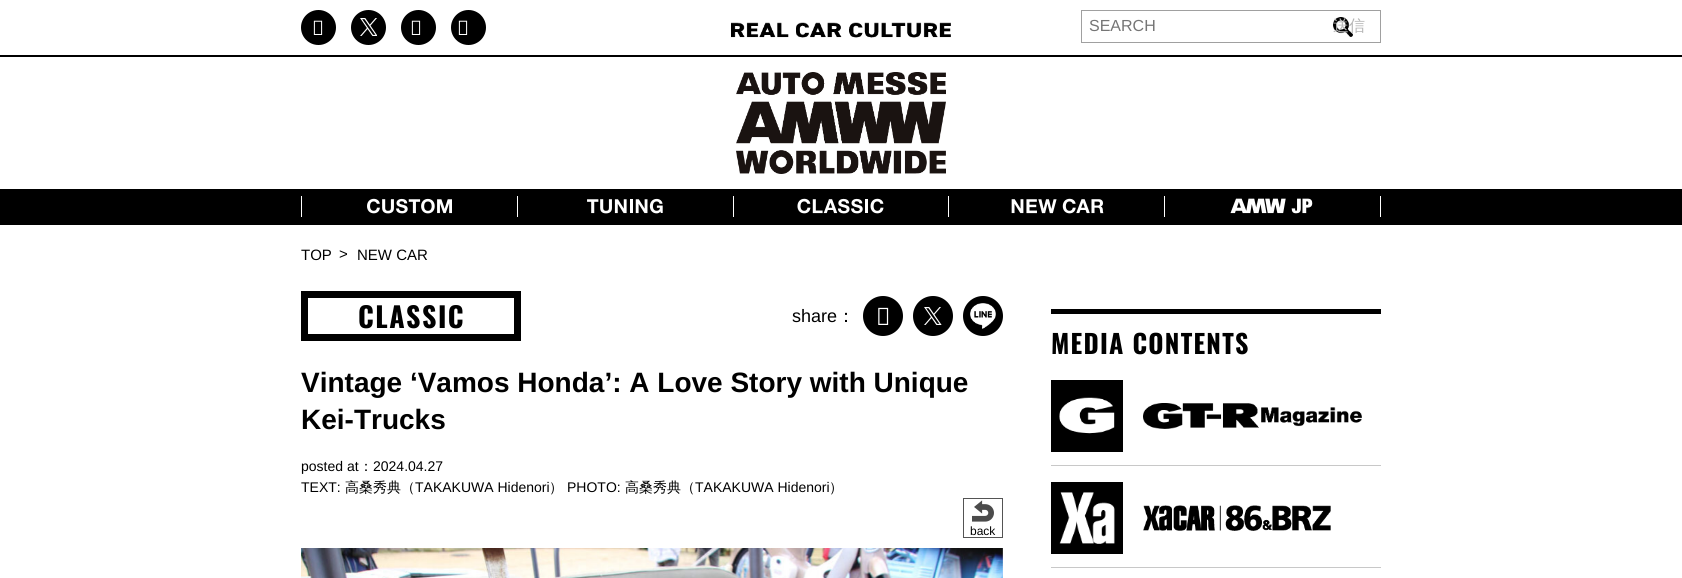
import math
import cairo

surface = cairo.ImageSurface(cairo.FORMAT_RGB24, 1682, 578)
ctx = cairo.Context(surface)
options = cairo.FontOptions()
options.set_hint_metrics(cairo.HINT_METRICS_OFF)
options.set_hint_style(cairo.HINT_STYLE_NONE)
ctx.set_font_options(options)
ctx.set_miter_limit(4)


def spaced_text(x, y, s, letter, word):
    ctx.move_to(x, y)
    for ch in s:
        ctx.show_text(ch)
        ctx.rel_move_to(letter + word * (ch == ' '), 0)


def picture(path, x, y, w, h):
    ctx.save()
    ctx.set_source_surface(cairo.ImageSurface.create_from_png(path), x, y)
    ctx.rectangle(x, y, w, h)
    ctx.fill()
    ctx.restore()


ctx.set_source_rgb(1, 1, 1)
ctx.paint()
ctx.set_source_rgb(0, 0, 0)
ctx.rectangle(0, 55, 1682, 2)
ctx.fill()
ctx.arc(318.5, 27.5, 17.5, 0, 2 * math.pi)
ctx.fill()
picture("img1.png", 313, 20, 10, 15)
ctx.arc(368.5, 27.5, 17.5, 0, 2 * math.pi)
ctx.fill()
picture("img2.png", 360, 18, 17, 18)
ctx.arc(418.5, 27.5, 17.5, 0, 2 * math.pi)
ctx.fill()
picture("img1.png", 411, 20, 10, 15)
ctx.arc(468.5, 27.5, 17.5, 0, 2 * math.pi)
ctx.fill()
picture("img1.png", 458, 20, 10, 15)
picture("img3.png", 731, 22, 220, 16)
ctx.rectangle(1081.5, 10.5, 299, 32)
ctx.set_source_rgb(0.627, 0.627, 0.627)
ctx.set_line_width(1)
ctx.stroke()
ctx.select_font_face("Liberation Sans")
ctx.set_font_size(16)
ctx.set_source_rgb(0.459, 0.459, 0.459)
ctx.move_to(1089, 31)
ctx.show_text("SEARCH")
picture("img4.png", 1333, 17, 20, 20)
ctx.select_font_face("WenQuanYi Zen Hei Medium")
ctx.set_source_rgb(0.71, 0.71, 0.71)
ctx.move_to(1333, 31)
ctx.show_text("送信")
picture("img5.png", 736, 72, 210, 102)
ctx.set_source_rgb(0, 0, 0)
ctx.rectangle(0, 189, 1682, 36)
ctx.fill()
ctx.set_source_rgb(1, 1, 1)
ctx.rectangle(1380, 196, 1, 21)
ctx.fill()
ctx.rectangle(301, 196, 1, 21)
ctx.fill()
picture("img6.png", 367, 198, 85, 16)
ctx.rectangle(517, 196, 1, 21)
ctx.fill()
picture("img7.png", 587, 198, 76, 16)
ctx.rectangle(733, 196, 1, 21)
ctx.fill()
picture("img8.png", 797, 198, 87, 16)
ctx.rectangle(948, 196, 1, 21)
ctx.fill()
picture("img9.png", 1011, 198, 93, 16)
ctx.rectangle(1164, 196, 1, 21)
ctx.fill()
picture("img10.png", 1230, 198, 83, 16)
ctx.select_font_face("Liberation Sans")
ctx.set_font_size(15)
ctx.set_source_rgb(0, 0, 0)
ctx.move_to(301, 260)
ctx.show_text("TOP")
ctx.move_to(339, 259)
ctx.show_text(">")
ctx.move_to(357, 260)
ctx.show_text("NEW CAR")
ctx.rectangle(304.5, 294.5, 213, 43)
ctx.set_line_width(7)
ctx.stroke()
ctx.select_font_face("Oswald", cairo.FONT_SLANT_NORMAL, cairo.FONT_WEIGHT_BOLD)
ctx.set_font_size(28)
spaced_text(358, 328, "CLASSIC", 1.5, 0)
ctx.select_font_face("Liberation Sans")
ctx.set_font_size(18)
ctx.move_to(792, 322)
ctx.show_text("share")
ctx.select_font_face("WenQuanYi Zen Hei Medium")
ctx.move_to(837, 322)
ctx.show_text("：")
ctx.new_path()
ctx.arc(883, 316, 20, 0, 2 * math.pi)
ctx.fill()
picture("img11.png", 878, 307, 11, 18)
ctx.arc(933, 316, 20, 0, 2 * math.pi)
ctx.fill()
picture("img12.png", 924, 307, 18, 18)
ctx.arc(983, 316, 20, 0, 2 * math.pi)
ctx.fill()
picture("img13.png", 970, 303, 26, 26)
ctx.select_font_face("Liberation Sans", cairo.FONT_SLANT_NORMAL, cairo.FONT_WEIGHT_BOLD)
ctx.set_font_size(28)
ctx.move_to(301, 392)
ctx.show_text("Vintage ‘Vamos Honda’: A Love Story with Unique")
ctx.move_to(301, 429)
ctx.show_text("Kei-Trucks")
ctx.select_font_face("Liberation Sans")
ctx.set_font_size(14)
ctx.move_to(301, 471)
ctx.show_text("posted at")
ctx.select_font_face("WenQuanYi Zen Hei Medium")
ctx.move_to(359, 471)
ctx.show_text("：")
ctx.select_font_face("Liberation Sans")
ctx.move_to(373, 471)
ctx.show_text("2024.04.27")
ctx.move_to(301, 492)
ctx.show_text("TEXT:")
ctx.select_font_face("WenQuanYi Zen Hei Medium")
ctx.move_to(345, 492)
ctx.show_text("高桑秀典（")
ctx.select_font_face("Liberation Sans")
ctx.move_to(415, 492)
ctx.show_text("TAKAKUWA Hidenori")
ctx.select_font_face("WenQuanYi Zen Hei Medium")
ctx.move_to(549, 492)
ctx.show_text("）")
ctx.select_font_face("Liberation Sans")
ctx.move_to(567, 492)
ctx.show_text("PHOTO:")
ctx.select_font_face("WenQuanYi Zen Hei Medium")
ctx.move_to(625, 492)
ctx.show_text("高桑秀典（")
ctx.select_font_face("Liberation Sans")
ctx.move_to(695, 492)
ctx.show_text("TAKAKUWA Hidenori")
ctx.select_font_face("WenQuanYi Zen Hei Medium")
ctx.move_to(829, 492)
ctx.show_text("）")
ctx.rectangle(963.5, 498.5, 39, 39)
ctx.set_source_rgb(0.329, 0.329, 0.329)
ctx.set_line_width(1)
ctx.stroke()
picture("img14.png", 972, 500, 22, 22)
ctx.select_font_face("Liberation Sans")
ctx.set_font_size(12)
ctx.set_source_rgb(0, 0, 0)
ctx.move_to(970, 535)
ctx.show_text("back")
picture("img15.png", 301, 548, 702, 30)
ctx.rectangle(1051, 309, 330, 5)
ctx.fill()
ctx.select_font_face("Oswald", cairo.FONT_SLANT_NORMAL, cairo.FONT_WEIGHT_BOLD)
ctx.set_font_size(26)
spaced_text(1051, 354, "MEDIA CONTENTS", 1.25, 0)
ctx.rectangle(1051, 380, 72, 72)
ctx.fill()
picture("img16.png", 1059, 397, 56, 37)
picture("img17.png", 1143, 403, 219, 26)
ctx.set_source_rgb(0.784, 0.784, 0.784)
ctx.rectangle(1051, 465, 330, 1)
ctx.fill()
ctx.set_source_rgb(0, 0, 0)
ctx.rectangle(1051, 482, 72, 72)
ctx.fill()
picture("img18.png", 1059, 492, 56, 52)
picture("img19.png", 1143, 505, 188, 26)
ctx.set_source_rgb(0.784, 0.784, 0.784)
ctx.rectangle(1051, 567, 330, 1)
ctx.fill()
surface.write_to_png("page.png")
